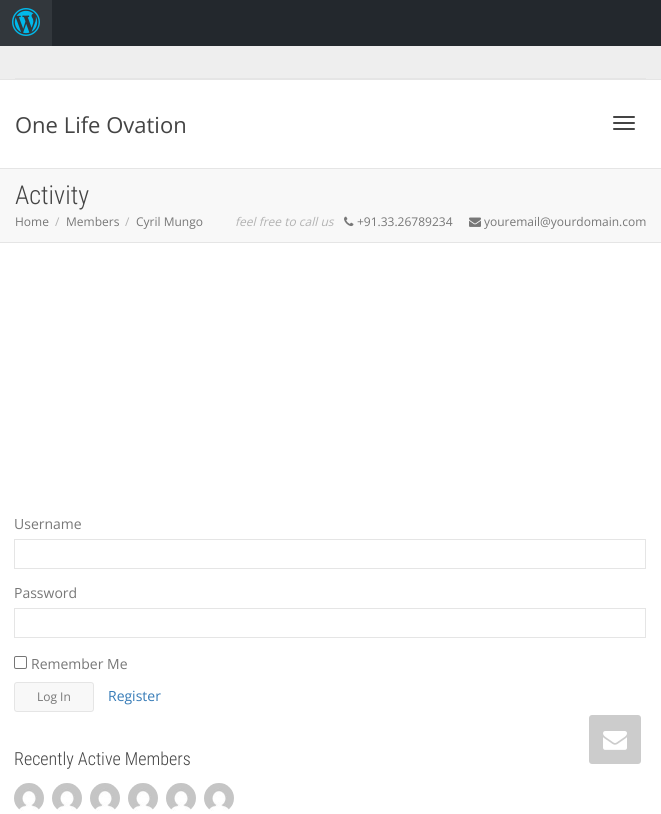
import math
import cairo

surface = cairo.ImageSurface(cairo.FORMAT_RGB24, 661, 814)
ctx = cairo.Context(surface)
options = cairo.FontOptions()
options.set_hint_metrics(cairo.HINT_METRICS_OFF)
options.set_hint_style(cairo.HINT_STYLE_NONE)
ctx.set_font_options(options)
ctx.set_miter_limit(4)


def round_rect(x, y, w, h, r):
    ctx.new_sub_path()
    for i, (u, v) in enumerate([(x + w - r, y + h - r), (x + r, y + h - r), (x + r, y + r), (x + w - r, y + r)]):
        ctx.arc(u, v, r, i * math.pi / 2, (i + 1) * math.pi / 2)
    ctx.close_path()


def picture(path, x, y, w, h):
    ctx.save()
    ctx.set_source_surface(cairo.ImageSurface.create_from_png(path), x, y)
    ctx.rectangle(x, y, w, h)
    ctx.fill()
    ctx.restore()


ctx.set_source_rgb(1, 1, 1)
ctx.paint()
ctx.set_source_rgb(0.137, 0.157, 0.176)
ctx.rectangle(52, 0, 609, 46)
ctx.fill()
ctx.set_source_rgb(0.196, 0.216, 0.235)
ctx.rectangle(0, 0, 52, 46)
ctx.fill()
picture("img1.png", 12, 8, 28, 28)
ctx.set_source_rgb(0.933, 0.933, 0.933)
ctx.rectangle(0, 46, 661, 33)
ctx.fill()
ctx.set_source_rgb(0.898, 0.898, 0.898)
ctx.rectangle(0, 79, 661, 1)
ctx.fill()
ctx.rectangle(15, 78, 631, 1)
ctx.fill()
ctx.rectangle(0, 168, 661, 1)
ctx.fill()
ctx.select_font_face("Open Sans")
ctx.set_font_size(22)
ctx.set_source_rgb(0.267, 0.267, 0.267)
ctx.move_to(15, 133)
ctx.show_text("One Life Ovation")
round_rect(613, 116, 22, 2, 1)
ctx.fill()
round_rect(613, 122, 22, 2, 1)
ctx.fill()
round_rect(613, 128, 22, 2, 1)
ctx.fill()
ctx.set_source_rgb(0.969, 0.969, 0.969)
ctx.rectangle(0, 169, 661, 73)
ctx.fill()
ctx.set_source_rgb(0.898, 0.898, 0.898)
ctx.rectangle(0, 242, 661, 1)
ctx.fill()
ctx.select_font_face("Roboto Condensed Light")
ctx.set_font_size(26)
ctx.set_source_rgb(0.267, 0.267, 0.267)
ctx.move_to(15, 204)
ctx.show_text("Activity")
ctx.select_font_face("Open Sans")
ctx.set_font_size(12)
ctx.set_source_rgb(0.467, 0.467, 0.467)
ctx.move_to(15, 226)
ctx.show_text("Home")
ctx.set_source_rgb(0.702, 0.702, 0.702)
ctx.move_to(55, 226)
ctx.show_text("/")
ctx.set_source_rgb(0.467, 0.467, 0.467)
ctx.move_to(66, 226)
ctx.show_text("Members")
ctx.set_source_rgb(0.702, 0.702, 0.702)
ctx.move_to(125, 226)
ctx.show_text("/")
ctx.set_source_rgb(0.467, 0.467, 0.467)
ctx.move_to(136, 226)
ctx.show_text("Cyril Mungo")
ctx.select_font_face("Open Sans", cairo.FONT_SLANT_ITALIC)
ctx.set_source_rgb(0.702, 0.702, 0.702)
ctx.move_to(235, 226)
ctx.show_text("feel free to call us")
picture("img2.png", 344, 216, 10, 11)
ctx.select_font_face("Open Sans")
ctx.set_source_rgb(0.467, 0.467, 0.467)
ctx.move_to(357, 226)
ctx.show_text("+91.33.26789234")
picture("img3.png", 469, 217, 12, 10)
ctx.move_to(484, 226)
ctx.show_text("youremail@yourdomain.com")
ctx.set_font_size(14)
ctx.move_to(14, 529)
ctx.show_text("Username")
ctx.rectangle(14.5, 539.5, 631, 29)
ctx.set_source_rgb(0.898, 0.898, 0.898)
ctx.set_line_width(1)
ctx.stroke()
ctx.set_source_rgb(0.467, 0.467, 0.467)
ctx.move_to(14, 598)
ctx.show_text("Password")
ctx.rectangle(14.5, 608.5, 631, 29)
ctx.set_source_rgb(0.898, 0.898, 0.898)
ctx.stroke()
round_rect(14.5, 656.5, 12, 12, 1.5)
ctx.set_source_rgb(0.463, 0.463, 0.463)
ctx.stroke()
ctx.set_source_rgb(0.467, 0.467, 0.467)
ctx.move_to(31, 669)
ctx.show_text("Remember Me")
ctx.set_source_rgb(0.969, 0.969, 0.969)
round_rect(14.5, 682.5, 79, 29, 2.5)
ctx.fill_preserve()
ctx.set_source_rgb(0.898, 0.898, 0.898)
ctx.stroke()
ctx.set_font_size(12)
ctx.set_source_rgb(0.467, 0.467, 0.467)
ctx.move_to(37, 701)
ctx.show_text("Log In")
ctx.set_font_size(14)
ctx.set_source_rgb(0.212, 0.482, 0.718)
ctx.move_to(108, 701)
ctx.show_text("Register")
ctx.select_font_face("Roboto Condensed Light")
ctx.set_font_size(18)
ctx.set_source_rgb(0.267, 0.267, 0.267)
ctx.move_to(14, 765)
ctx.show_text("Recently Active Members")
picture("img4.png", 14, 783, 30, 28)
picture("img5.png", 52, 783, 30, 28)
picture("img6.png", 90, 783, 30, 28)
picture("img7.png", 128, 783, 30, 28)
picture("img8.png", 166, 783, 30, 28)
picture("img6.png", 204, 783, 30, 28)
ctx.set_source_rgb(0.8, 0.8, 0.8)
round_rect(589, 715, 52, 49, 3)
ctx.fill()
picture("img9.png", 603, 731, 24, 19)
surface.write_to_png("page.png")
